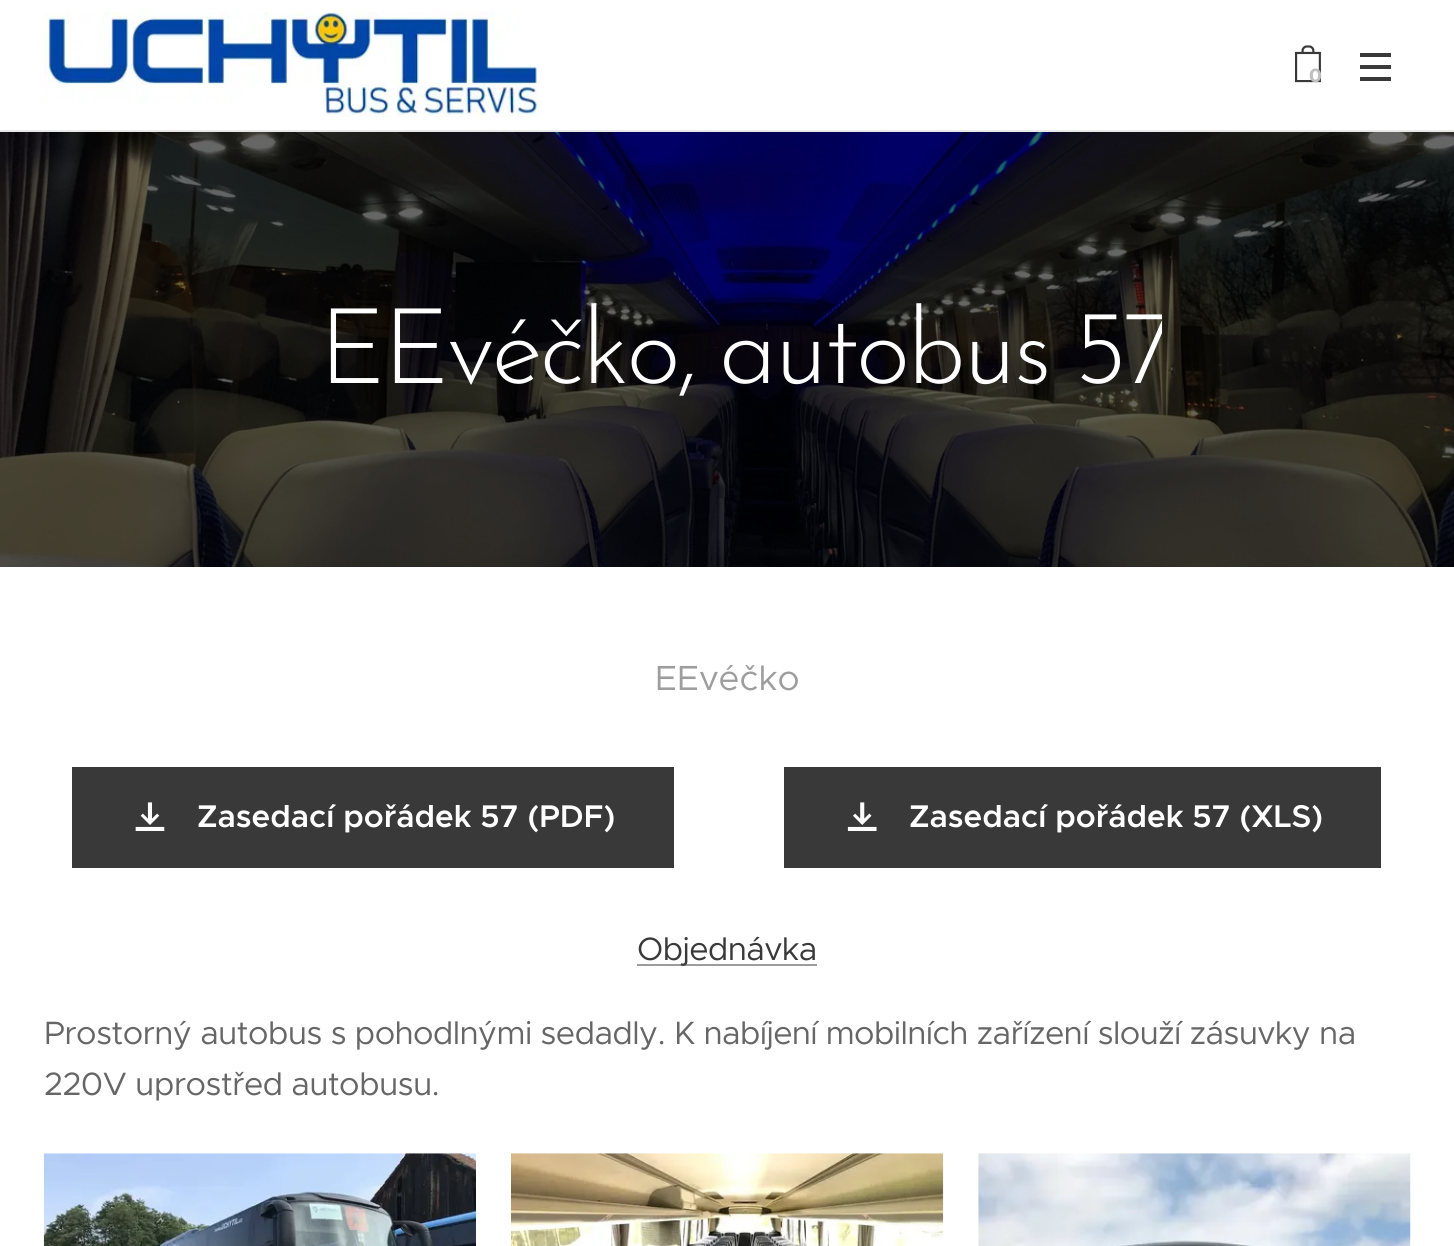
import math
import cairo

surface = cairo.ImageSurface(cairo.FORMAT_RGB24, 1454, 1246)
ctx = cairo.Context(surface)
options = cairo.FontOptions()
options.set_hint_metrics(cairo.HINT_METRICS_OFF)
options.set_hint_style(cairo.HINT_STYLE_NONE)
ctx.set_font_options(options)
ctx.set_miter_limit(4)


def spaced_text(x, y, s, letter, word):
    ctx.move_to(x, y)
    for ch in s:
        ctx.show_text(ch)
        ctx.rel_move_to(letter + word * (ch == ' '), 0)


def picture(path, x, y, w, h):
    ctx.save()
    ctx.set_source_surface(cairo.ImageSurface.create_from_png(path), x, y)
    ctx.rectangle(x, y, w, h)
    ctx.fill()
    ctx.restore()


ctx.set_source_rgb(1, 1, 1)
ctx.paint()
ctx.set_source_rgb(0.91, 0.91, 0.91)
ctx.rectangle(0, 130, 1454, 2)
ctx.fill()
picture("img1.png", 44, 12, 496, 105)
picture("img2.png", 1295, 45, 26, 38)
ctx.select_font_face("Montserrat", cairo.FONT_SLANT_NORMAL, cairo.FONT_WEIGHT_BOLD)
ctx.set_font_size(19)
ctx.set_source_rgb(0.745, 0.745, 0.745)
ctx.move_to(1309, 82)
ctx.show_text("0")
ctx.set_source_rgb(0.224, 0.224, 0.224)
ctx.rectangle(1360, 65, 31, 4)
ctx.fill()
ctx.rectangle(1360, 53, 31, 4)
ctx.fill()
ctx.rectangle(1360, 77, 31, 4)
ctx.fill()
picture("img3.png", 0, 132, 1454, 435)
ctx.save()
ctx.rectangle(292, 261, 870, 175)
ctx.clip()
ctx.select_font_face("Josefin Sans Light")
ctx.set_font_size(105)
ctx.set_source_rgb(1, 1, 1)
spaced_text(319, 383, "EEvéčko, autobus 57", -3.1, -6)
ctx.restore()
ctx.select_font_face("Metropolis")
ctx.set_font_size(35)
ctx.set_source_rgb(0.616, 0.616, 0.616)
ctx.move_to(655, 690)
ctx.show_text("EEvéčko")
ctx.set_source_rgb(0.224, 0.224, 0.224)
ctx.rectangle(72, 767, 602, 101)
ctx.fill()
picture("img4.png", 135, 802, 30, 29)
ctx.select_font_face("Metropolis SemiBold")
ctx.set_font_size(31.5)
ctx.set_source_rgb(1, 1, 1)
ctx.move_to(197, 827)
ctx.show_text("Zasedací pořádek 57 (PDF)")
ctx.set_source_rgb(0.224, 0.224, 0.224)
ctx.rectangle(784, 767, 597, 101)
ctx.fill()
picture("img5.png", 847, 802, 30, 29)
ctx.set_source_rgb(1, 1, 1)
ctx.move_to(909, 827)
ctx.show_text("Zasedací pořádek 57 (XLS)")
ctx.set_source_rgb(0.612, 0.612, 0.612)
ctx.rectangle(637, 964, 180, 2)
ctx.fill()
ctx.select_font_face("Metropolis")
ctx.set_font_size(32.4)
ctx.set_source_rgb(0.224, 0.224, 0.224)
spaced_text(637, 960, "Objednávka", -0.65, 0)
ctx.set_source_rgb(0.4, 0.4, 0.4)
spaced_text(44, 1044, "Prostorný autobus s pohodlnými sedadly. K nabíjení mobilních zařízení slouží zásuvky na", -0.65, 0)
spaced_text(44, 1095, "220V uprostřed autobusu.", -0.65, 0)
picture("img6.png", 43, 1153, 433, 93)
picture("img7.png", 511, 1153, 433, 93)
picture("img8.png", 978, 1153, 433, 93)
surface.write_to_png("page.png")
